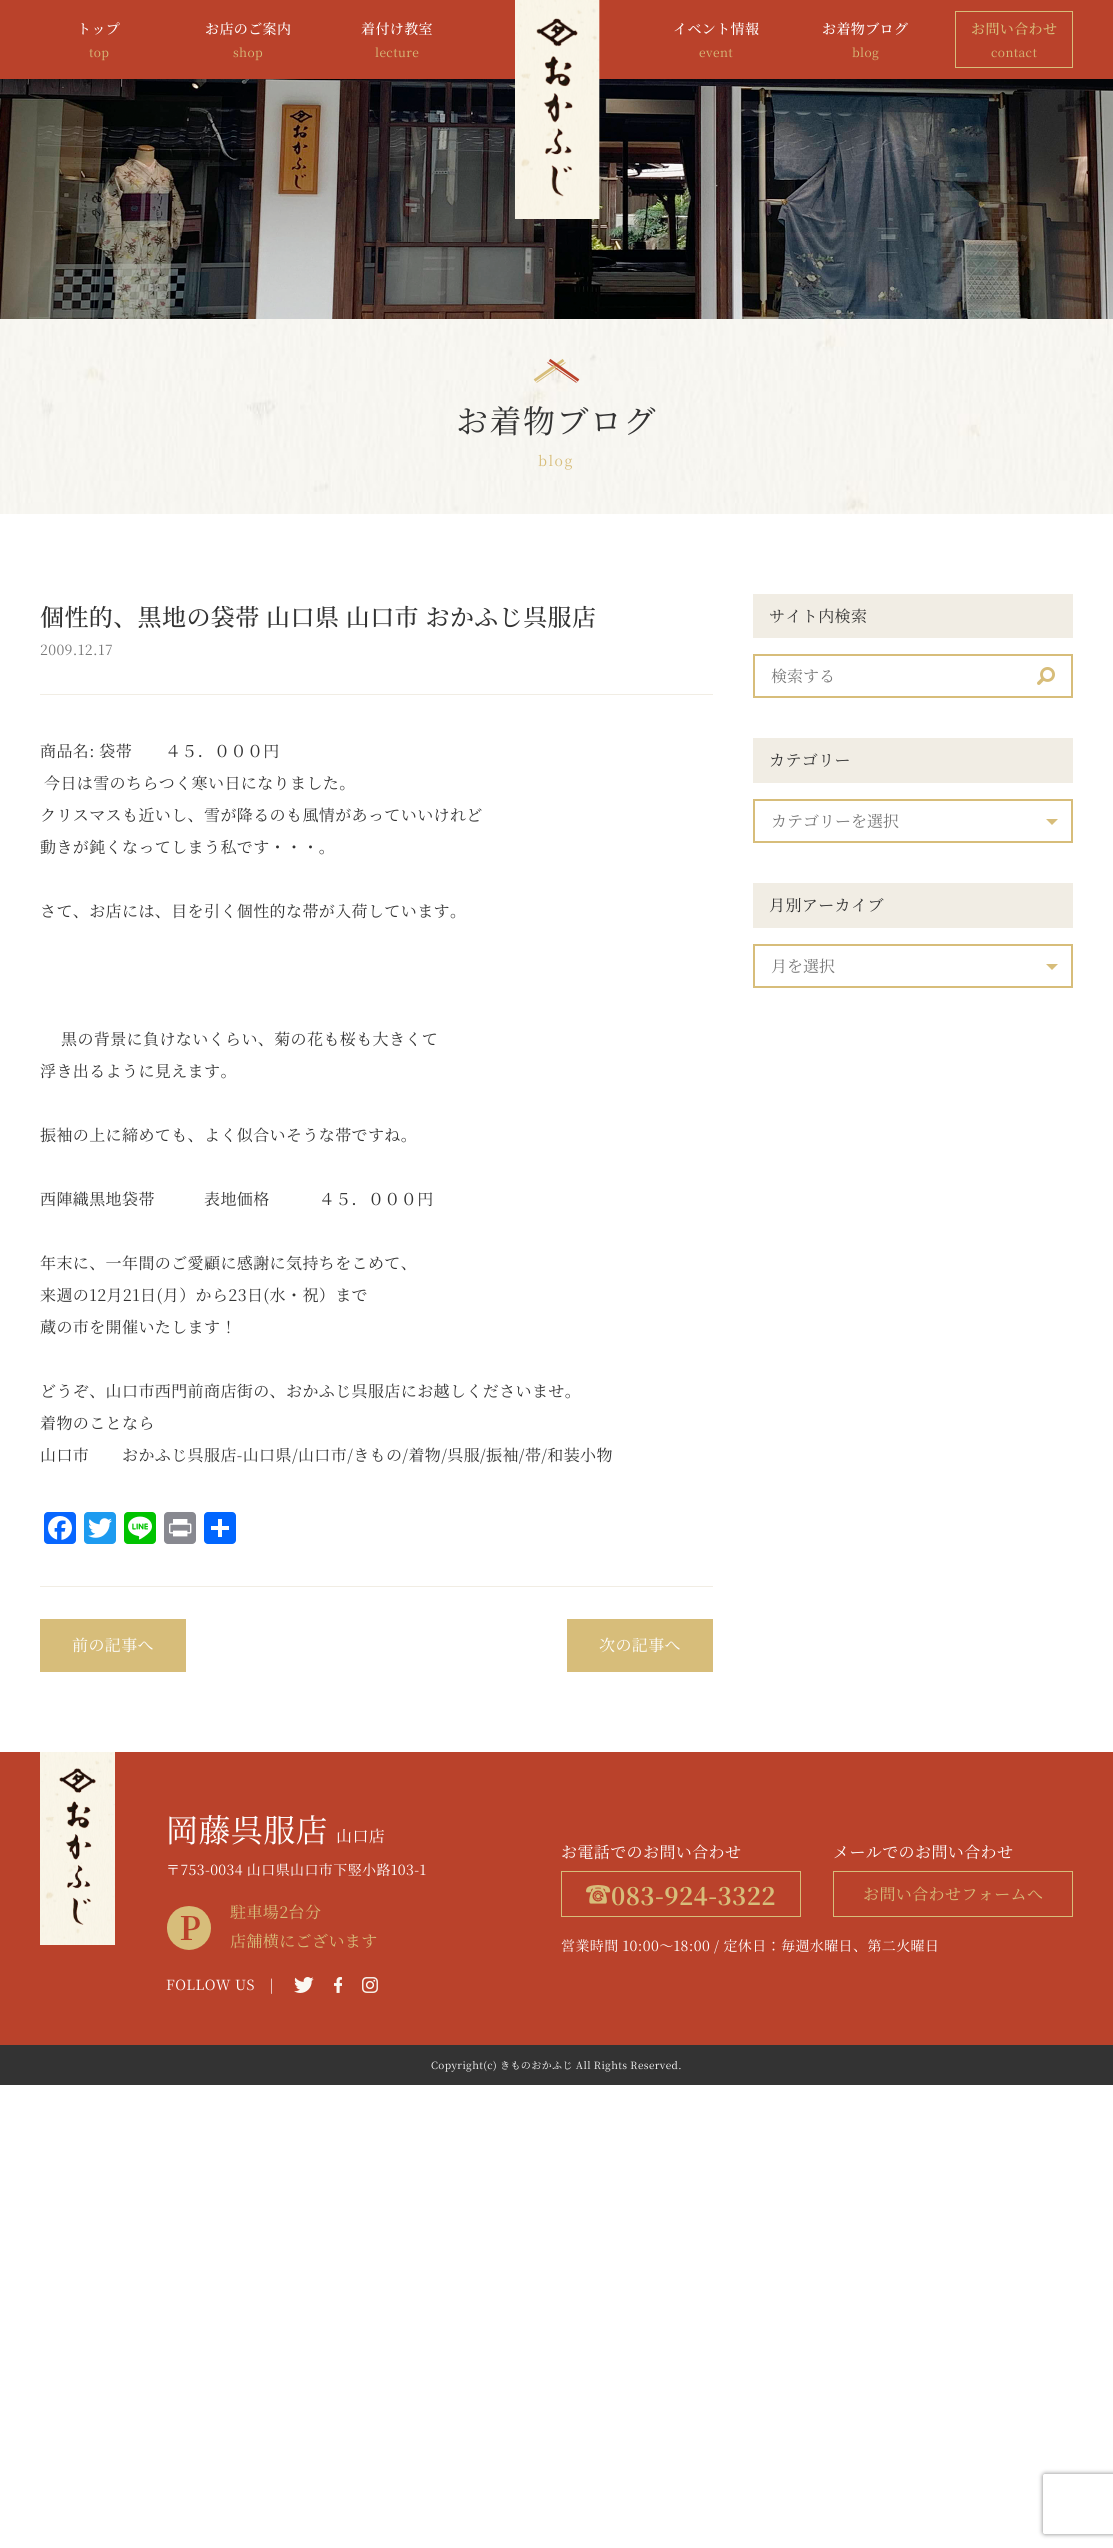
import math
import cairo

surface = cairo.ImageSurface(cairo.FORMAT_RGB24, 1113, 2548)
ctx = cairo.Context(surface)
options = cairo.FontOptions()
options.set_hint_metrics(cairo.HINT_METRICS_OFF)
options.set_hint_style(cairo.HINT_STYLE_NONE)
ctx.set_font_options(options)
ctx.set_miter_limit(4)


def spaced_text(x, y, s, letter, word):
    ctx.move_to(x, y)
    for ch in s:
        ctx.show_text(ch)
        ctx.rel_move_to(letter + word * (ch == ' '), 0)


def round_rect(x, y, w, h, r):
    ctx.new_sub_path()
    for i, (u, v) in enumerate([(x + w - r, y + h - r), (x + r, y + h - r), (x + r, y + r), (x + w - r, y + r)]):
        ctx.arc(u, v, r, i * math.pi / 2, (i + 1) * math.pi / 2)
    ctx.close_path()


def shadow(x, y, w, h, r, blur, alpha):
    ctx.push_group_with_content(cairo.CONTENT_ALPHA)
    ctx.set_operator(cairo.OPERATOR_SOURCE)
    for i in range(15, -16, -2):
        e = blur * i / 6
        if min(w, h) + 2 * e > 0:
            ctx.set_source_rgba(0, 0, 0, alpha * math.erfc((i - 1) / 8.5) / 2)
            round_rect(x - e, y - e, w + 2 * e, h + 2 * e, max(0, min(r + e + blur * .6, min(w, h) / 2 + e)))
            ctx.fill()
    ctx.mask(ctx.pop_group())


def picture(path, x, y, w, h):
    ctx.save()
    ctx.set_source_surface(cairo.ImageSurface.create_from_png(path), x, y)
    ctx.rectangle(x, y, w, h)
    ctx.fill()
    ctx.restore()


ctx.set_source_rgb(1, 1, 1)
ctx.paint()
ctx.set_source_rgb(0.729, 0.259, 0.169)
ctx.rectangle(0, 0, 1113, 79)
ctx.fill()
picture("img3.png", 0, 79, 1113, 240)
picture("img1.png", 515, 0, 85, 219)
ctx.select_font_face("Noto Serif JP Medium")
ctx.set_font_size(14)
ctx.set_source_rgb(1, 1, 1)
spaced_text(77, 34, "トップ", 0.4, 0)
ctx.select_font_face("Noto Serif JP")
ctx.set_font_size(12)
ctx.set_source_rgb(0.843, 0.741, 0.478)
spaced_text(89, 57, "top", 0.4, 0)
ctx.select_font_face("Noto Serif JP Medium")
ctx.set_font_size(14)
ctx.set_source_rgb(1, 1, 1)
spaced_text(205, 34, "お店のご案内", 0.4, 0)
ctx.select_font_face("Noto Serif JP")
ctx.set_font_size(12)
ctx.set_source_rgb(0.843, 0.741, 0.478)
spaced_text(233, 57, "shop", 0.4, 0)
ctx.select_font_face("Noto Serif JP Medium")
ctx.set_font_size(14)
ctx.set_source_rgb(1, 1, 1)
spaced_text(361, 34, "着付け教室", 0.4, 0)
ctx.select_font_face("Noto Serif JP")
ctx.set_font_size(12)
ctx.set_source_rgb(0.843, 0.741, 0.478)
spaced_text(375, 57, "lecture", 0.4, 0)
ctx.select_font_face("Noto Serif JP Medium")
ctx.set_font_size(14)
ctx.set_source_rgb(1, 1, 1)
spaced_text(673, 34, "イベント情報", 0.4, 0)
ctx.select_font_face("Noto Serif JP")
ctx.set_font_size(12)
ctx.set_source_rgb(0.843, 0.741, 0.478)
spaced_text(699, 57, "event", 0.4, 0)
ctx.select_font_face("Noto Serif JP Medium")
ctx.set_font_size(14)
ctx.set_source_rgb(1, 1, 1)
spaced_text(822, 34, "お着物ブログ", 0.4, 0)
ctx.select_font_face("Noto Serif JP")
ctx.set_font_size(12)
ctx.set_source_rgb(0.843, 0.741, 0.478)
spaced_text(852, 57, "blog", 0.4, 0)
ctx.rectangle(955.5, 11.5, 117, 56)
ctx.set_line_width(1)
ctx.stroke()
ctx.select_font_face("Noto Serif JP Medium")
ctx.set_font_size(14)
spaced_text(971, 34, "お問い合わせ", 0.4, 0)
ctx.select_font_face("Noto Serif JP")
ctx.set_font_size(12)
spaced_text(991, 57, "contact", 0.4, 0)
picture("img2.png", 0, 319, 1113, 195)
ctx.new_path()
ctx.move_to(536.5, 382.5)
ctx.line_to(565.5, 362.5)
ctx.set_line_width(0.9)
ctx.stroke()
ctx.new_path()
ctx.move_to(547.5, 362.5)
ctx.line_to(576.5, 382.5)
ctx.set_source_rgb(0.729, 0.259, 0.169)
ctx.stroke()
ctx.new_path()
ctx.move_to(534.5, 380.5)
ctx.line_to(563.5, 360)
ctx.set_source_rgb(0.843, 0.741, 0.478)
ctx.set_line_width(2.8)
ctx.stroke()
ctx.new_path()
ctx.move_to(549.5, 360)
ctx.line_to(578.5, 380.5)
ctx.set_source_rgb(0.729, 0.259, 0.169)
ctx.stroke()
ctx.set_font_size(32)
ctx.set_source_rgb(0.2, 0.2, 0.2)
spaced_text(456, 433, "お着物ブログ", 1.5, 0)
ctx.set_font_size(14)
ctx.set_source_rgb(0.843, 0.741, 0.478)
spaced_text(538, 466, "blog", 1.5, 0)
ctx.select_font_face("Noto Serif JP Medium")
ctx.set_font_size(24)
ctx.set_source_rgb(0.2, 0.2, 0.2)
spaced_text(40, 626, "個性的、黒地の袋帯 山口県 山口市 おかふじ呉服店", 0.4, 0)
ctx.select_font_face("Noto Serif JP")
ctx.set_font_size(14)
ctx.set_source_rgb(0.467, 0.467, 0.467)
spaced_text(40, 655, "2009.12.17", 0.4, 0)
ctx.set_source_rgb(0.945, 0.929, 0.894)
ctx.rectangle(40, 694, 673, 1)
ctx.fill()
ctx.rectangle(40, 1586, 673, 1)
ctx.fill()
ctx.set_font_size(16)
ctx.set_source_rgb(0.2, 0.2, 0.2)
spaced_text(40, 757, "商品名: 袋帯　　４５．０００円", 0.4, 0)
spaced_text(44, 789, "今日は雪のちらつく寒い日になりました。", 0.4, 0)
spaced_text(40, 821, "クリスマスも近いし、雪が降るのも風情があっていいけれど", 0.4, 0)
spaced_text(40, 853, "動きが鈍くなってしまう私です・・・。", 0.4, 0)
spaced_text(40, 917, "さて、お店には、目を引く個性的な帯が入荷しています。", 0.4, 0)
spaced_text(61, 1045, "黒の背景に負けないくらい、菊の花も桜も大きくて", 0.4, 0)
spaced_text(40, 1077, "浮き出るように見えます。", 0.4, 0)
spaced_text(40, 1141, "振袖の上に締めても、よく似合いそうな帯ですね。", 0.4, 0)
spaced_text(40, 1205, "西陣織黒地袋帯　　　表地価格　　　４５．０００円", 0.4, 0)
spaced_text(40, 1269, "年末に、一年間のご愛顧に感謝に気持ちをこめて、", 0.4, 0)
spaced_text(40, 1301, "来週の12月21日(月）から23日(水・祝）まで", 0.4, 0)
spaced_text(40, 1333, "蔵の市を開催いたします！", 0.4, 0)
spaced_text(40, 1397, "どうぞ、山口市西門前商店街の、おかふじ呉服店にお越しくださいませ。", 0.4, 0)
spaced_text(40, 1429, "着物のことなら", 0.4, 0)
spaced_text(40, 1461, "山口市", 0.4, 0)
spaced_text(122, 1461, "おかふじ呉服店-山口県/山口市/きもの/着物/呉服/振袖/帯/和装小物", 0.4, 0)
ctx.set_source_rgb(0.031, 0.4, 1)
round_rect(44, 1512, 32, 32, 4)
ctx.fill()
picture("img4.png", 48, 1516, 24, 24)
ctx.set_source_rgb(0.114, 0.608, 0.941)
round_rect(84, 1512, 32, 32, 4)
ctx.fill()
picture("img5.png", 88, 1518, 24, 20)
ctx.set_source_rgb(0, 0.765, 0)
round_rect(124, 1512, 32, 32, 4)
ctx.fill()
picture("img6.png", 128, 1516, 24, 24)
ctx.set_source_rgb(0.533, 0.537, 0.565)
round_rect(164, 1512, 32, 32, 4)
ctx.fill()
picture("img7.png", 169, 1519, 23, 18)
ctx.set_source_rgb(0.004, 0.4, 1)
round_rect(204, 1512, 32, 32, 4)
ctx.fill()
ctx.set_source_rgb(1, 1, 1)
ctx.rectangle(218, 1519, 4, 18)
ctx.fill()
ctx.rectangle(211, 1526, 18, 4)
ctx.fill()
ctx.set_source_rgb(0.843, 0.741, 0.478)
ctx.rectangle(40, 1619, 146, 53)
ctx.fill()
ctx.set_source_rgb(1, 1, 1)
spaced_text(72, 1651, "前の記事へ", 0.4, 0)
ctx.set_source_rgb(0.843, 0.741, 0.478)
ctx.rectangle(567, 1619, 146, 53)
ctx.fill()
ctx.set_source_rgb(1, 1, 1)
spaced_text(599, 1651, "次の記事へ", 0.4, 0)
ctx.set_source_rgb(0.945, 0.929, 0.894)
ctx.rectangle(753, 594, 320, 44)
ctx.fill()
ctx.set_source_rgb(0.2, 0.2, 0.2)
spaced_text(769, 622, "サイト内検索", 0.4, 0)
ctx.rectangle(754, 655, 318, 42)
ctx.set_source_rgb(0.843, 0.741, 0.478)
ctx.set_line_width(2)
ctx.stroke()
ctx.set_source_rgb(0.467, 0.467, 0.467)
ctx.move_to(771, 682)
ctx.show_text("検索する")
picture("img8.png", 1037, 667, 18, 18)
ctx.set_source_rgb(0.945, 0.929, 0.894)
ctx.rectangle(753, 738, 320, 45)
ctx.fill()
ctx.set_source_rgb(0.2, 0.2, 0.2)
spaced_text(769, 766, "カテゴリー", 0.4, 0)
ctx.rectangle(754, 800, 318, 42)
ctx.set_source_rgb(0.843, 0.741, 0.478)
ctx.stroke()
ctx.set_source_rgb(0.467, 0.467, 0.467)
ctx.move_to(771, 827)
ctx.show_text("カテゴリーを選択")
ctx.set_source_rgb(0.843, 0.741, 0.478)
ctx.new_path()
ctx.move_to(1046, 819)
ctx.line_to(1058, 819)
ctx.line_to(1052, 825)
ctx.close_path()
ctx.fill()
ctx.set_source_rgb(0.945, 0.929, 0.894)
ctx.rectangle(753, 883, 320, 45)
ctx.fill()
ctx.set_source_rgb(0.2, 0.2, 0.2)
spaced_text(769, 911, "月別アーカイブ", 0.4, 0)
ctx.rectangle(754, 945, 318, 42)
ctx.set_source_rgb(0.843, 0.741, 0.478)
ctx.stroke()
ctx.set_source_rgb(0.467, 0.467, 0.467)
ctx.move_to(771, 972)
ctx.show_text("月を選択")
ctx.set_source_rgb(0.843, 0.741, 0.478)
ctx.new_path()
ctx.move_to(1046, 964)
ctx.line_to(1058, 964)
ctx.line_to(1052, 970)
ctx.close_path()
ctx.fill()
ctx.set_source_rgb(0.729, 0.259, 0.169)
ctx.rectangle(0, 1752, 1113, 293)
ctx.fill()
picture("img9.png", 40, 1752, 75, 193)
ctx.set_font_size(32)
ctx.set_source_rgb(1, 1, 1)
spaced_text(166, 1842, "岡藤呉服店", 0.4, 0)
ctx.set_font_size(16)
spaced_text(336, 1842, "山口店", 0.4, 0)
ctx.set_font_size(14)
spaced_text(166, 1875, "〒753-0034 山口県山口市下竪小路103-1", 0.4, 0)
picture("img10.png", 167, 1906, 44, 44)
ctx.set_font_size(16)
ctx.set_source_rgb(0.843, 0.741, 0.478)
spaced_text(230, 1918, "駐車場2台分", 0.4, 0)
spaced_text(230, 1947, "店舗横にございます", 0.4, 0)
ctx.set_font_size(14)
ctx.set_source_rgb(1, 1, 1)
spaced_text(166, 1990, "FOLLOW US　|", 0.4, 0)
picture("img11.png", 294, 1977, 20, 16)
picture("img12.png", 334, 1977, 8, 16)
picture("img13.png", 362, 1977, 16, 16)
ctx.set_font_size(16)
spaced_text(561, 1858, "お電話でのお問い合わせ", 0.4, 0)
ctx.rectangle(561.5, 1871.5, 239, 45)
ctx.set_source_rgb(0.843, 0.741, 0.478)
ctx.set_line_width(1)
ctx.stroke()
picture("img14.png", 586, 1885, 25, 19)
ctx.select_font_face("Noto Serif JP", cairo.FONT_SLANT_NORMAL, cairo.FONT_WEIGHT_BOLD)
ctx.set_font_size(24)
spaced_text(611, 1905, "083-924-3322", 0.4, 0)
ctx.select_font_face("Noto Serif JP")
ctx.set_font_size(16)
ctx.set_source_rgb(1, 1, 1)
spaced_text(833, 1858, "メールでのお問い合わせ", 0.4, 0)
ctx.rectangle(833.5, 1871.5, 239, 45)
ctx.set_source_rgb(0.843, 0.741, 0.478)
ctx.stroke()
spaced_text(863, 1900, "お問い合わせフォームへ", 0.4, 0)
ctx.set_font_size(14)
ctx.set_source_rgb(1, 1, 1)
spaced_text(561, 1951, "営業時間 10:00～18:00 / 定休日：毎週水曜日、第二火曜日", 0.4, 0)
ctx.set_source_rgb(0.2, 0.2, 0.2)
ctx.rectangle(0, 2045, 1113, 40)
ctx.fill()
ctx.set_font_size(10)
ctx.set_source_rgb(1, 1, 1)
spaced_text(431, 2069, "Copyright(c) きものおかふじ All Rights Reserved.", 0.4, 0)
ctx.save()
ctx.set_fill_rule(cairo.FILL_RULE_EVEN_ODD)
ctx.new_path()
ctx.move_to(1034, 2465)
ctx.line_to(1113, 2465)
ctx.line_to(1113, 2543)
ctx.line_to(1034, 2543)
ctx.close_path()
ctx.move_to(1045, 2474)
ctx.line_to(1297, 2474)
ctx.curve_to(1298, 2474, 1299, 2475, 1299, 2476)
ctx.line_to(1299, 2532)
ctx.curve_to(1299, 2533, 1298, 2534, 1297, 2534)
ctx.line_to(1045, 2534)
ctx.curve_to(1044, 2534, 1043, 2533, 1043, 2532)
ctx.line_to(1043, 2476)
ctx.curve_to(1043, 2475, 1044, 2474, 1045, 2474)
ctx.close_path()
ctx.clip()
ctx.set_source_rgb(0.502, 0.502, 0.502)
shadow(1043, 2474, 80, 60, 2, 2.5, 1)
ctx.restore()
surface.write_to_png("page.png")
